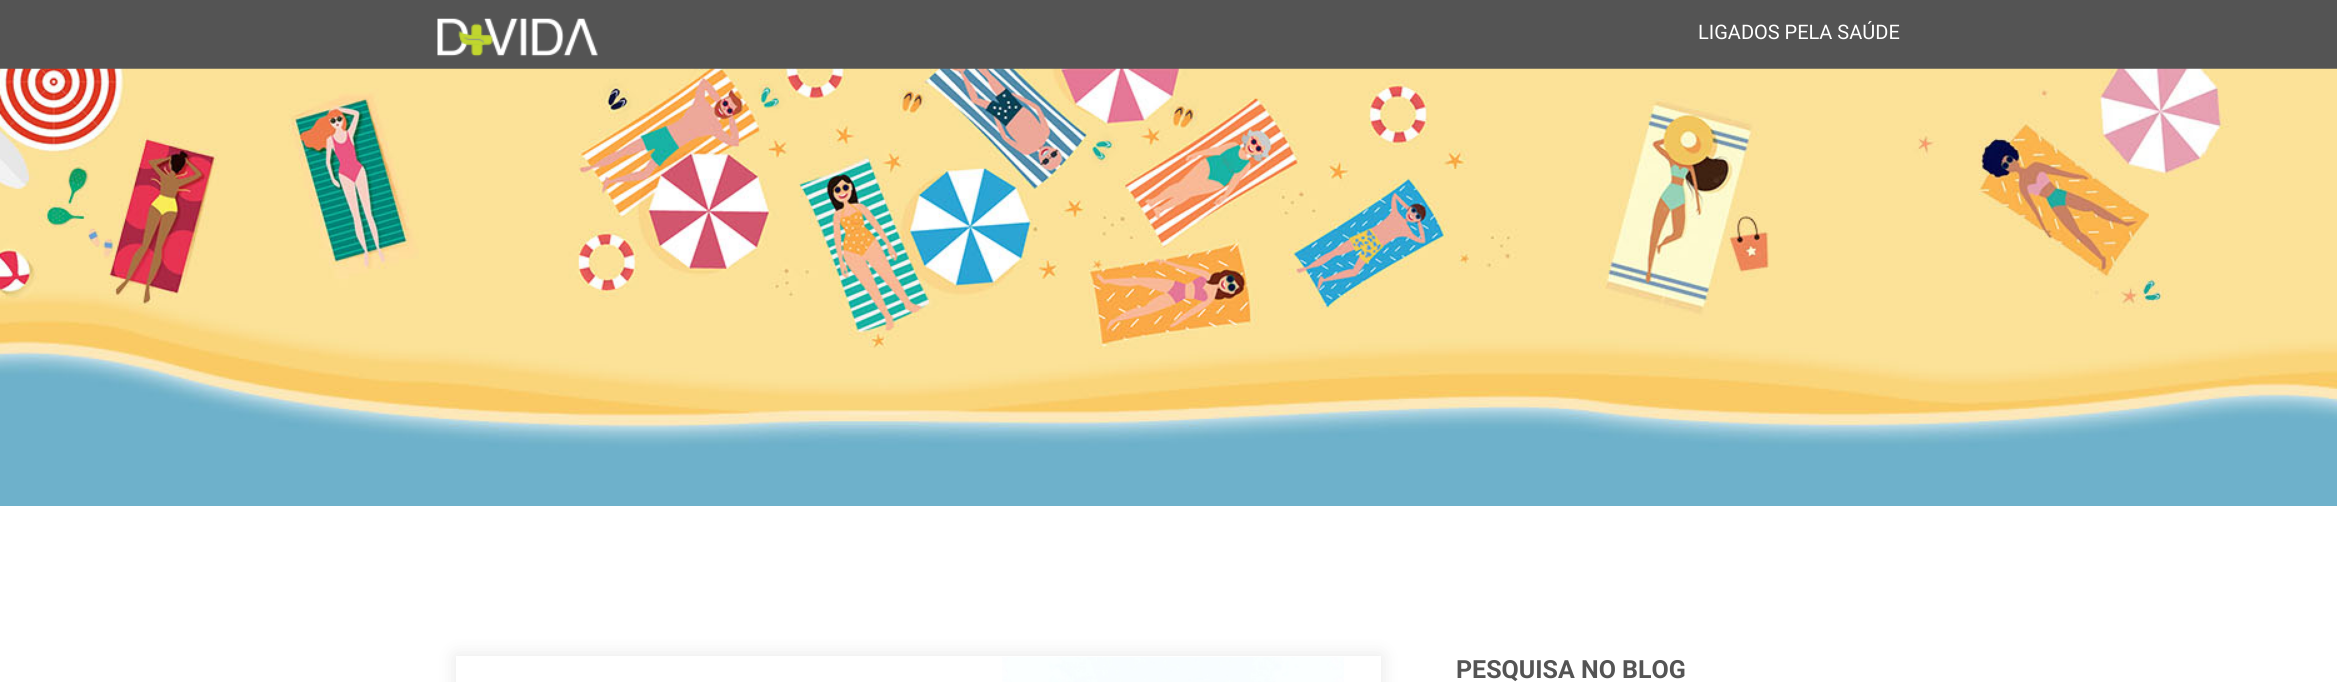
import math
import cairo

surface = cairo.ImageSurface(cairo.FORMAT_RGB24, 2337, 682)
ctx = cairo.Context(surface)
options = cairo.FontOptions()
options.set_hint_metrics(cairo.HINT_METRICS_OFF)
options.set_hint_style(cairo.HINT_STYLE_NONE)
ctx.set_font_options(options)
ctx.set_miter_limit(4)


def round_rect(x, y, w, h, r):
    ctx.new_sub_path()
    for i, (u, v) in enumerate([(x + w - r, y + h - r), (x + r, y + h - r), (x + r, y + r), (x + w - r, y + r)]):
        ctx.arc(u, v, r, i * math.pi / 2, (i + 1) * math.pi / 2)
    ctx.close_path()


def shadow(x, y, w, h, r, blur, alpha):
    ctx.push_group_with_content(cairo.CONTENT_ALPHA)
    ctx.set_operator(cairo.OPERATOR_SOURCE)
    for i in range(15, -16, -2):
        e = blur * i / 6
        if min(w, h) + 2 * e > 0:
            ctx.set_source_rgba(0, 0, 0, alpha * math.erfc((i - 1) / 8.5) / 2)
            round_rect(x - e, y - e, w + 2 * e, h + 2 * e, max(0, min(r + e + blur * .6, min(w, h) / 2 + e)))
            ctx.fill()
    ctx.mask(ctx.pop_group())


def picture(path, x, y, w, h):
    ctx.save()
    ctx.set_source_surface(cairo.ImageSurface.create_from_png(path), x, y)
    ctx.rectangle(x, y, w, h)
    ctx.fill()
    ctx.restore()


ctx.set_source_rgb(0.329, 0.329, 0.329)
ctx.paint()
picture("img1.png", 437, 18, 161, 39)
ctx.select_font_face("Roboto")
ctx.set_font_size(20)
ctx.set_source_rgb(1, 1, 1)
ctx.move_to(1698, 39)
ctx.show_text("LIGADOS PELA SAÚDE")
picture("img2.png", 0, 68, 2337, 438)
ctx.rectangle(0, 506, 2337, 176)
ctx.fill()
ctx.save()
ctx.set_fill_rule(cairo.FILL_RULE_EVEN_ODD)
ctx.new_path()
ctx.move_to(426, 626)
ctx.line_to(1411, 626)
ctx.line_to(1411, 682)
ctx.line_to(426, 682)
ctx.close_path()
ctx.move_to(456, 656)
ctx.line_to(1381, 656)
ctx.line_to(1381, 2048)
ctx.line_to(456, 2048)
ctx.close_path()
ctx.clip()
ctx.set_source_rgb(0, 0, 0)
shadow(456, 656, 925, 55, 0, 9.5, 0.1)
ctx.restore()
picture("img3.png", 1002, 657, 342, 25)
ctx.select_font_face("Roboto", cairo.FONT_SLANT_NORMAL, cairo.FONT_WEIGHT_BOLD)
ctx.set_font_size(25)
ctx.set_source_rgb(0.329, 0.329, 0.329)
ctx.move_to(1456, 678)
ctx.show_text("PESQUISA NO BLOG")
surface.write_to_png("page.png")
